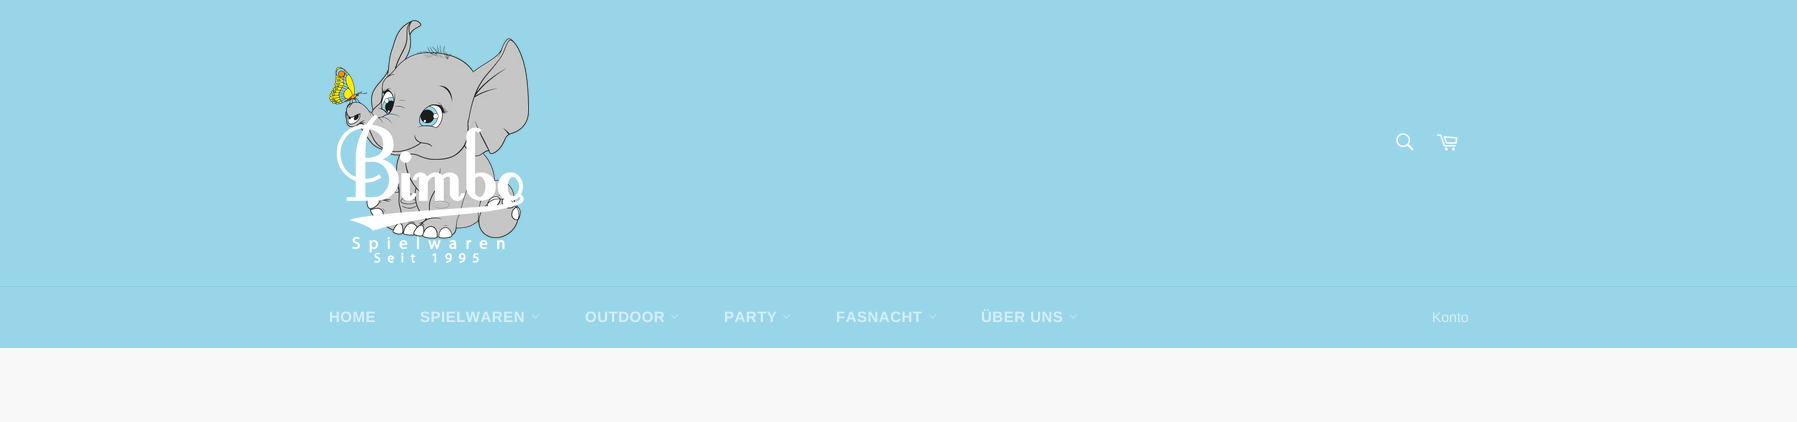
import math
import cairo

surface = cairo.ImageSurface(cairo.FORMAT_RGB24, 1797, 422)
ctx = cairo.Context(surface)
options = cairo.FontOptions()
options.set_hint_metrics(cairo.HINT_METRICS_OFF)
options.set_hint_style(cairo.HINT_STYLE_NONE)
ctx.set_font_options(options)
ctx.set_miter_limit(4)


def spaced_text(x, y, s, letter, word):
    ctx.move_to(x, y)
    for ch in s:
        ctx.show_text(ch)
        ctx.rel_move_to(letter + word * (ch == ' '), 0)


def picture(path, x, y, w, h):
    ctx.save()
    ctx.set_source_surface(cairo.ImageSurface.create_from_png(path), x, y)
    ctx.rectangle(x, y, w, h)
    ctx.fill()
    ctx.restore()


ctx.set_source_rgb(0.969, 0.969, 0.969)
ctx.paint()
ctx.set_source_rgb(0.596, 0.835, 0.914)
ctx.rectangle(0, 0, 1797, 286)
ctx.fill()
picture("img1.png", 329, 20, 200, 243)
picture("img2.png", 1396, 133, 18, 18)
picture("img3.png", 1436, 134, 22, 17)
ctx.rectangle(0, 287, 1797, 61)
ctx.fill()
ctx.set_source_rgb(0.514, 0.8, 0.898)
ctx.rectangle(0, 286, 1797, 1)
ctx.fill()
ctx.select_font_face("Arimo", cairo.FONT_SLANT_NORMAL, cairo.FONT_WEIGHT_BOLD)
ctx.set_font_size(15)
ctx.set_source_rgb(0.839, 0.933, 0.965)
spaced_text(329, 322, "HOME", 0.5, 0)
spaced_text(420, 322, "SPIELWAREN", 0.5, 0)
picture("img4.png", 532, 314, 7, 5)
spaced_text(585, 322, "OUTDOOR", 0.5, 0)
picture("img4.png", 671, 314, 7, 5)
spaced_text(724, 322, "PARTY", 0.5, 0)
picture("img4.png", 783, 314, 7, 5)
spaced_text(836, 322, "FASNACHT", 0.5, 0)
picture("img4.png", 929, 314, 7, 5)
spaced_text(981, 322, "ÜBER UNS", 0.5, 0)
picture("img4.png", 1070, 314, 7, 5)
ctx.select_font_face("Arimo")
ctx.set_font_size(14)
ctx.move_to(1432, 322)
ctx.show_text("Konto")
surface.write_to_png("page.png")
